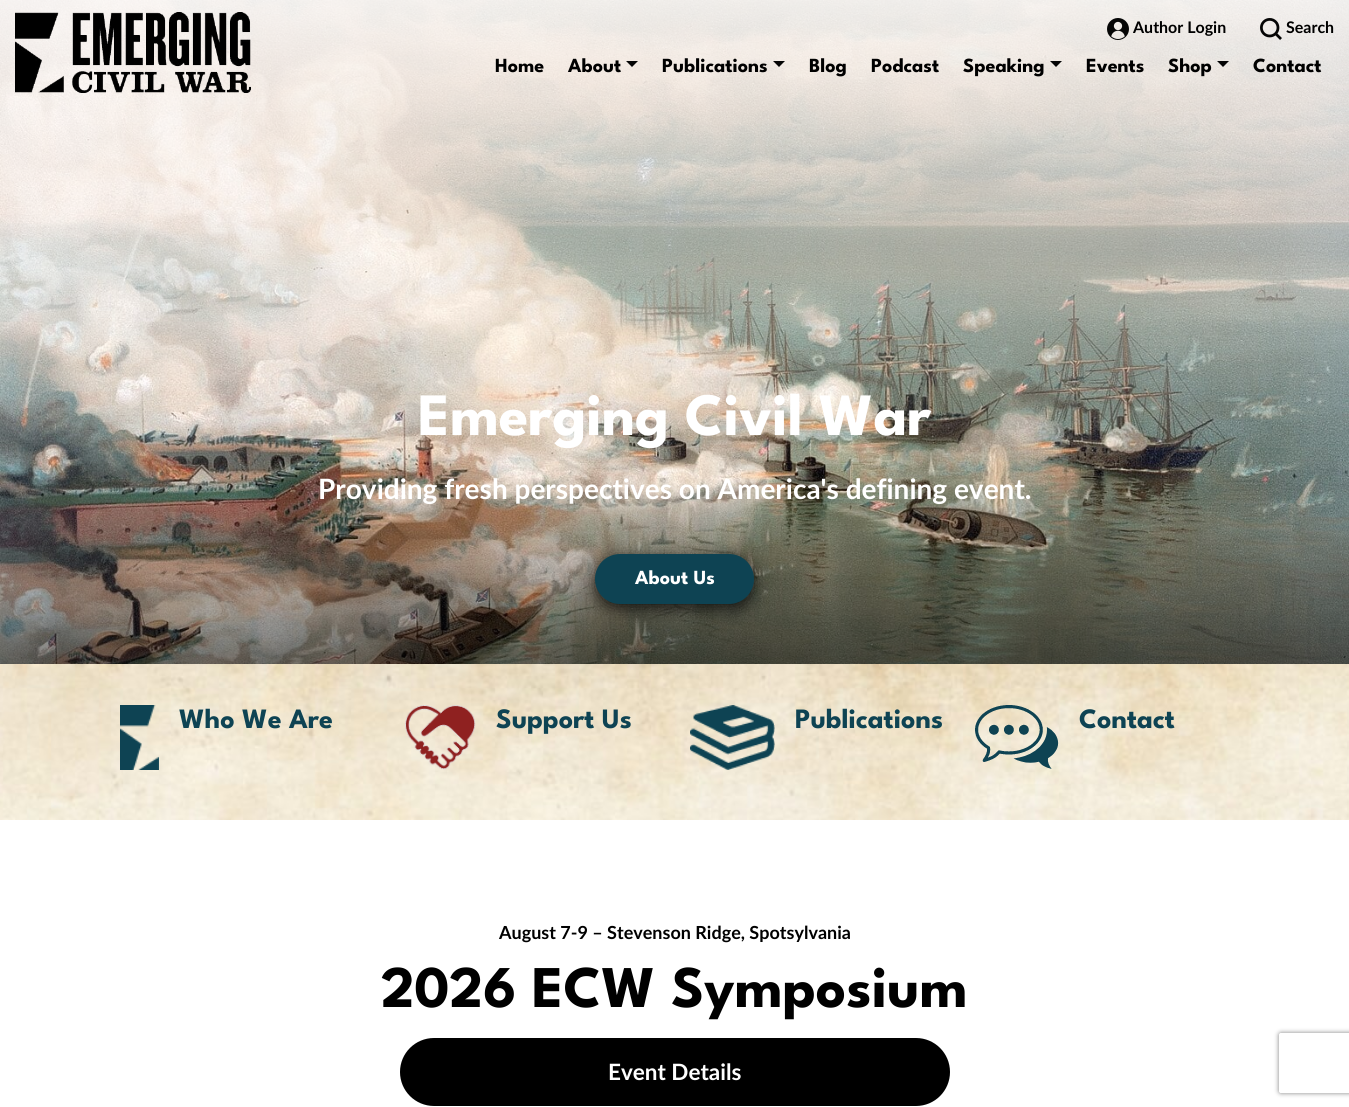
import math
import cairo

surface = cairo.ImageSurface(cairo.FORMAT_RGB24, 1349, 1107)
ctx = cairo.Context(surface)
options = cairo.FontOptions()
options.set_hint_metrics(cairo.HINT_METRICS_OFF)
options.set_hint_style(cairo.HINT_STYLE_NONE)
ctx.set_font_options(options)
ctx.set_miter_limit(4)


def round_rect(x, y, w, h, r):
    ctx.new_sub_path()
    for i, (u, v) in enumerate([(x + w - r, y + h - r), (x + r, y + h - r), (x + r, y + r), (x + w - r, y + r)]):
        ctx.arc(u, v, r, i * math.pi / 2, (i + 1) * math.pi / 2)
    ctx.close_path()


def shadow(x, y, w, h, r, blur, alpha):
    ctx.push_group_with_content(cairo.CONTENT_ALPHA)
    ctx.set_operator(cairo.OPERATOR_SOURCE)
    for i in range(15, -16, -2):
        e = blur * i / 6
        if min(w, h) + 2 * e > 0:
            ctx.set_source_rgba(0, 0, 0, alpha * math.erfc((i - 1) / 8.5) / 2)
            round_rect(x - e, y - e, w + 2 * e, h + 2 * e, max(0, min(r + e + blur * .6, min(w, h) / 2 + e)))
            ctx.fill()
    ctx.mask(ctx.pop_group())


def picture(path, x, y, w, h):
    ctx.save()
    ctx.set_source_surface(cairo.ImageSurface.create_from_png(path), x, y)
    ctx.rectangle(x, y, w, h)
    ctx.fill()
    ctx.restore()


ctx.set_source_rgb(1, 1, 1)
ctx.paint()
picture("img4.png", 0, 0, 1349, 664)
picture("img1.png", 15, 12, 236, 81)
picture("img2.png", 1107, 18, 22, 22)
ctx.select_font_face("Lato", cairo.FONT_SLANT_NORMAL, cairo.FONT_WEIGHT_BOLD)
ctx.set_font_size(16)
ctx.set_source_rgb(0, 0, 0)
ctx.move_to(1133, 33)
ctx.show_text("Author Login")
picture("img3.png", 1260, 18, 22, 22)
ctx.move_to(1286, 33)
ctx.show_text("Search")
ctx.select_font_face("League Spartan", cairo.FONT_SLANT_NORMAL, cairo.FONT_WEIGHT_BOLD)
ctx.set_font_size(20)
ctx.move_to(495, 72)
ctx.show_text("Home")
ctx.move_to(568, 72)
ctx.show_text("About")
ctx.set_source_rgb(0.02, 0.02, 0.02)
ctx.new_path()
ctx.move_to(626, 61)
ctx.line_to(638, 61)
ctx.line_to(632, 67)
ctx.close_path()
ctx.fill()
ctx.set_source_rgb(0, 0, 0)
ctx.move_to(662, 72)
ctx.show_text("Publications")
ctx.set_source_rgb(0.02, 0.02, 0.02)
ctx.new_path()
ctx.move_to(773, 61)
ctx.line_to(785, 61)
ctx.line_to(779, 67)
ctx.close_path()
ctx.fill()
ctx.set_source_rgb(0, 0, 0)
ctx.move_to(809, 72)
ctx.show_text("Blog")
ctx.move_to(871, 72)
ctx.show_text("Podcast")
ctx.move_to(963, 72)
ctx.show_text("Speaking")
ctx.set_source_rgb(0.02, 0.02, 0.02)
ctx.new_path()
ctx.move_to(1050, 61)
ctx.line_to(1062, 61)
ctx.line_to(1056, 67)
ctx.close_path()
ctx.fill()
ctx.set_source_rgb(0, 0, 0)
ctx.move_to(1086, 72)
ctx.show_text("Events")
ctx.move_to(1168, 72)
ctx.show_text("Shop")
ctx.set_source_rgb(0.02, 0.02, 0.02)
ctx.new_path()
ctx.move_to(1217, 61)
ctx.line_to(1229, 61)
ctx.line_to(1223, 67)
ctx.close_path()
ctx.fill()
ctx.set_source_rgb(0, 0, 0)
ctx.move_to(1253, 72)
ctx.show_text("Contact")
ctx.set_font_size(60)
ctx.set_source_rgb(1, 1, 1)
ctx.move_to(418, 435)
ctx.show_text("Emerging Civil War")
ctx.select_font_face("Lato", cairo.FONT_SLANT_NORMAL, cairo.FONT_WEIGHT_BOLD)
ctx.set_font_size(28)
ctx.move_to(318, 499)
ctx.show_text("Providing fresh perspectives on America's defining event.")
ctx.set_source_rgb(0, 0, 0)
shadow(595, 559, 159, 50, 25, 8, 0.75)
ctx.set_source_rgb(0.055, 0.263, 0.325)
round_rect(595, 554, 159, 50, 25)
ctx.fill()
ctx.select_font_face("League Spartan", cairo.FONT_SLANT_NORMAL, cairo.FONT_WEIGHT_BOLD)
ctx.set_font_size(20)
ctx.set_source_rgb(1, 1, 1)
ctx.move_to(635, 584)
ctx.show_text("About Us")
picture("img5.png", 0, 664, 1349, 156)
picture("img6.png", 120, 705, 39, 65)
ctx.set_font_size(28)
ctx.set_source_rgb(0.055, 0.263, 0.325)
ctx.move_to(179, 728)
ctx.show_text("Who We Are")
picture("img7.png", 405, 705, 71, 65)
ctx.move_to(496, 728)
ctx.show_text("Support Us")
picture("img8.png", 690, 705, 85, 65)
ctx.move_to(795, 728)
ctx.show_text("Publications")
picture("img9.png", 975, 705, 84, 64)
ctx.move_to(1079, 728)
ctx.show_text("Contact")
ctx.select_font_face("Lato", cairo.FONT_SLANT_NORMAL, cairo.FONT_WEIGHT_BOLD)
ctx.set_font_size(18)
ctx.set_source_rgb(0, 0, 0)
ctx.move_to(499, 939)
ctx.show_text("August 7-9 – Stevenson Ridge, Spotsylvania")
ctx.select_font_face("League Spartan", cairo.FONT_SLANT_NORMAL, cairo.FONT_WEIGHT_BOLD)
ctx.set_font_size(59)
ctx.move_to(381, 1007)
ctx.show_text("2026 ECW Symposium")
round_rect(400, 1038, 550, 68, 34)
ctx.fill()
ctx.select_font_face("Lato", cairo.FONT_SLANT_NORMAL, cairo.FONT_WEIGHT_BOLD)
ctx.set_font_size(22.5)
ctx.set_source_rgb(1, 1, 1)
ctx.move_to(608, 1080)
ctx.show_text("Event Details")
ctx.save()
ctx.set_fill_rule(cairo.FILL_RULE_EVEN_ODD)
ctx.new_path()
ctx.move_to(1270, 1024)
ctx.line_to(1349, 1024)
ctx.line_to(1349, 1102)
ctx.line_to(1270, 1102)
ctx.close_path()
ctx.move_to(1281, 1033)
ctx.line_to(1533, 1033)
ctx.curve_to(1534, 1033, 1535, 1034, 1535, 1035)
ctx.line_to(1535, 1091)
ctx.curve_to(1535, 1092, 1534, 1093, 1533, 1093)
ctx.line_to(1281, 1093)
ctx.curve_to(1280, 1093, 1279, 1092, 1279, 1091)
ctx.line_to(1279, 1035)
ctx.curve_to(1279, 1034, 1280, 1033, 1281, 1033)
ctx.close_path()
ctx.clip()
ctx.set_source_rgb(0.502, 0.502, 0.502)
shadow(1279, 1033, 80, 60, 2, 2.5, 1)
ctx.restore()
surface.write_to_png("page.png")
